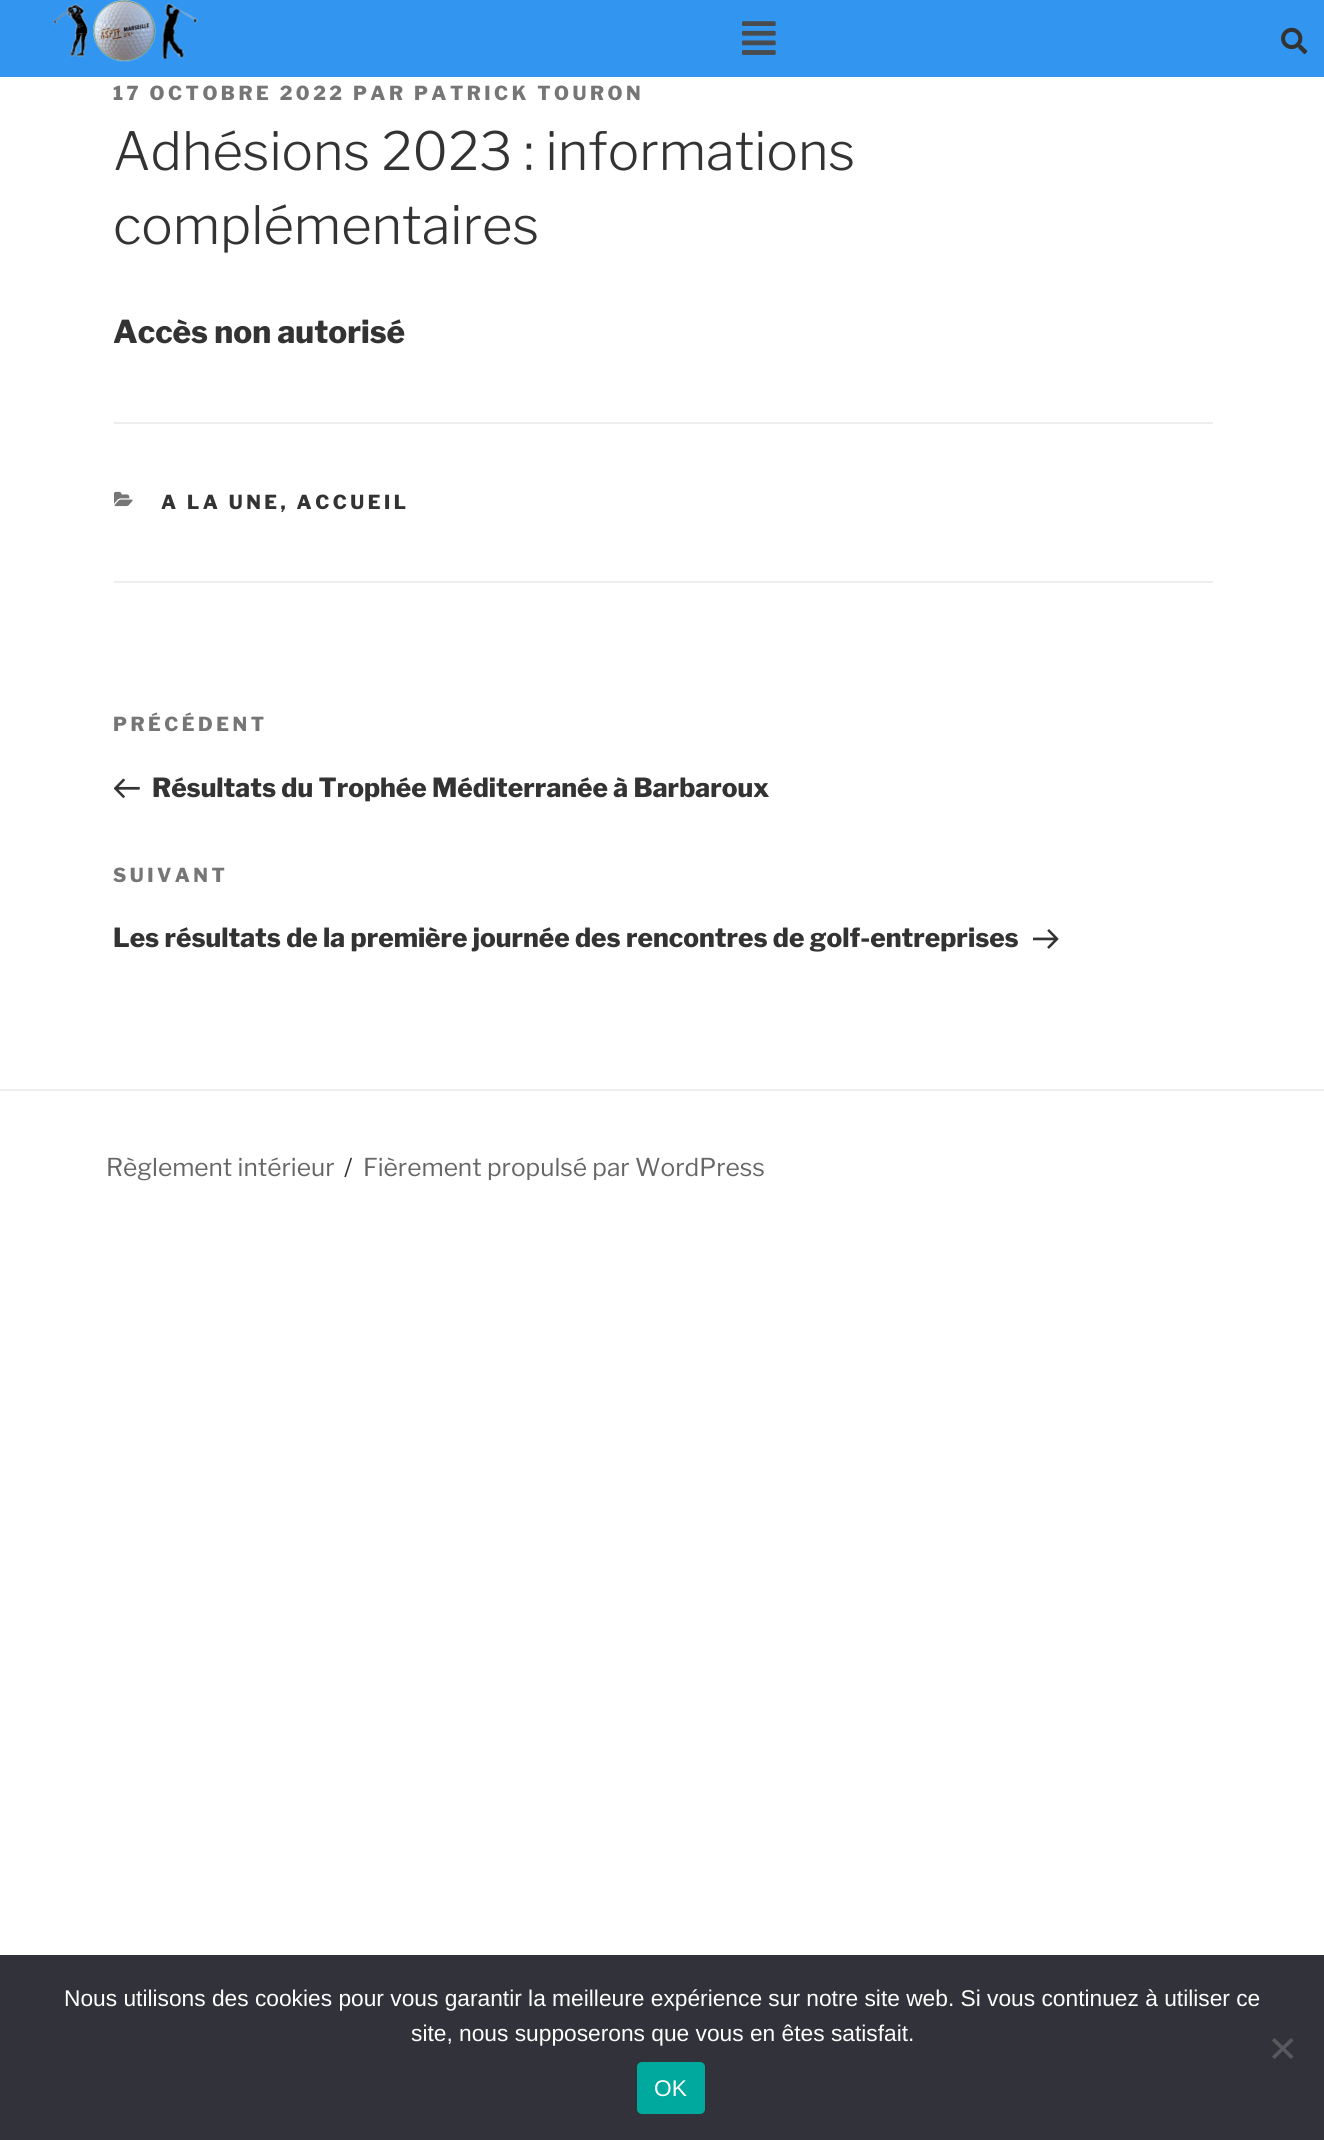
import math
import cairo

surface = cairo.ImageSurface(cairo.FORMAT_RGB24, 1324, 2140)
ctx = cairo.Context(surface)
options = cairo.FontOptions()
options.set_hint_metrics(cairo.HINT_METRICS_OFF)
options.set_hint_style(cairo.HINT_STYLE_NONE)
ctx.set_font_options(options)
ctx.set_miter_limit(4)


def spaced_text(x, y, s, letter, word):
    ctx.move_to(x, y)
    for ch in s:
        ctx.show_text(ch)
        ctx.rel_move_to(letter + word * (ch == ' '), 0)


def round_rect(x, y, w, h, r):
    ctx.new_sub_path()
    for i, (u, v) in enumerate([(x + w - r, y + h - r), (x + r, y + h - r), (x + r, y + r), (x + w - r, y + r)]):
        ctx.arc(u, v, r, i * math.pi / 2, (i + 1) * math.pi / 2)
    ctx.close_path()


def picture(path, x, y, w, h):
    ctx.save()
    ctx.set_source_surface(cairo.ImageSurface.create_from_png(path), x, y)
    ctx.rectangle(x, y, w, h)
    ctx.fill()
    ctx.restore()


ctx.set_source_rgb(1, 1, 1)
ctx.paint()
ctx.set_source_rgb(0.196, 0.588, 0.941)
ctx.rectangle(0, 0, 1324, 77)
ctx.fill()
picture("img1.png", 53, 0, 145, 62)
picture("img2.png", 742, 21, 34, 34)
picture("img3.png", 1281, 27, 27, 27)
ctx.select_font_face("Libre Franklin ExtraBold")
ctx.set_font_size(19.25)
ctx.set_source_rgb(0.463, 0.463, 0.463)
spaced_text(113, 100, "17 OCTOBRE 2022 PAR PATRICK TOURON", 3.5, 0)
ctx.select_font_face("Libre Franklin Light")
ctx.set_font_size(52.5)
ctx.set_source_rgb(0.2, 0.2, 0.2)
ctx.move_to(113, 170)
ctx.show_text("Adhésions 2023 : informations")
ctx.move_to(113, 244)
ctx.show_text("complémentaires")
ctx.select_font_face("Libre Franklin ExtraBold")
ctx.set_font_size(31.5)
ctx.move_to(113, 343)
ctx.show_text("Accès non autorisé")
ctx.set_source_rgb(0.933, 0.933, 0.933)
ctx.rectangle(114, 422, 1099, 2)
ctx.fill()
ctx.rectangle(114, 581, 1099, 2)
ctx.fill()
picture("img4.png", 114, 491, 19, 16)
ctx.set_font_size(19.25)
ctx.set_source_rgb(0.2, 0.2, 0.2)
spaced_text(161, 509, "A LA UNE, ACCUEIL", 3.5, 0)
ctx.set_source_rgb(0.463, 0.463, 0.463)
spaced_text(113, 731, "PRÉCÉDENT", 3.5, 0)
picture("img5.png", 114, 778, 26, 21)
ctx.set_font_size(26.25)
ctx.set_source_rgb(0.2, 0.2, 0.2)
ctx.move_to(152, 797)
ctx.show_text("Résultats du Trophée Méditerranée à Barbaroux")
ctx.set_font_size(19.25)
ctx.set_source_rgb(0.463, 0.463, 0.463)
spaced_text(113, 882, "SUIVANT", 3.5, 0)
ctx.set_font_size(26.25)
ctx.set_source_rgb(0.2, 0.2, 0.2)
ctx.move_to(113, 947)
ctx.show_text("Les résultats de la première journée des rencontres de golf-entreprises")
picture("img6.png", 1033, 929, 26, 20)
ctx.set_source_rgb(0.933, 0.933, 0.933)
ctx.rectangle(0, 1089, 1324, 2)
ctx.fill()
ctx.select_font_face("Libre Franklin")
ctx.set_font_size(24.5)
ctx.set_source_rgb(0.4, 0.4, 0.4)
ctx.move_to(106, 1176)
ctx.show_text("Règlement intérieur")
ctx.set_source_rgb(0.2, 0.2, 0.2)
ctx.move_to(344, 1176)
ctx.show_text("/")
ctx.set_source_rgb(0.4, 0.4, 0.4)
ctx.move_to(363, 1176)
ctx.show_text("Fièrement propulsé par WordPress")
ctx.set_source_rgb(0.196, 0.196, 0.227)
ctx.rectangle(0, 1955, 1324, 185)
ctx.fill()
ctx.select_font_face("Liberation Sans")
ctx.set_font_size(22.75)
ctx.set_source_rgb(1, 1, 1)
ctx.move_to(64, 2006)
ctx.show_text("Nous utilisons des cookies pour vous garantir la meilleure expérience sur notre site web. Si vous continuez à utiliser ce")
ctx.move_to(411, 2041)
ctx.show_text("site, nous supposerons que vous en êtes satisfait.")
ctx.set_source_rgb(0.349, 0.349, 0.365)
ctx.new_path()
ctx.move_to(1291, 2038)
ctx.line_to(1293.5, 2040.5)
ctx.line_to(1274.5, 2059)
ctx.line_to(1272, 2056.5)
ctx.close_path()
ctx.fill()
ctx.new_path()
ctx.move_to(1272, 2040.5)
ctx.line_to(1274.5, 2038)
ctx.line_to(1293.5, 2056.5)
ctx.line_to(1291, 2059)
ctx.close_path()
ctx.fill()
ctx.set_source_rgb(0, 0.663, 0.616)
round_rect(637, 2062, 68, 52, 5)
ctx.fill()
ctx.set_source_rgb(1, 1, 1)
ctx.move_to(654, 2096)
ctx.show_text("OK")
surface.write_to_png("page.png")
